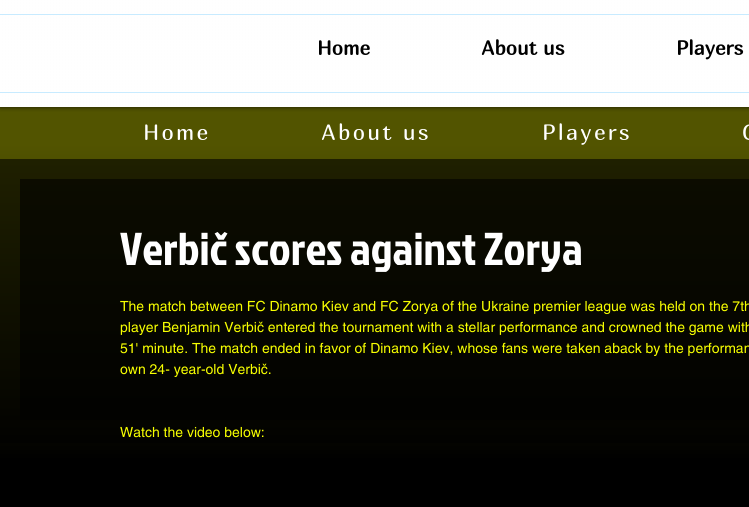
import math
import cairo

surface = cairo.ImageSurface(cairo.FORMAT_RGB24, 749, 507)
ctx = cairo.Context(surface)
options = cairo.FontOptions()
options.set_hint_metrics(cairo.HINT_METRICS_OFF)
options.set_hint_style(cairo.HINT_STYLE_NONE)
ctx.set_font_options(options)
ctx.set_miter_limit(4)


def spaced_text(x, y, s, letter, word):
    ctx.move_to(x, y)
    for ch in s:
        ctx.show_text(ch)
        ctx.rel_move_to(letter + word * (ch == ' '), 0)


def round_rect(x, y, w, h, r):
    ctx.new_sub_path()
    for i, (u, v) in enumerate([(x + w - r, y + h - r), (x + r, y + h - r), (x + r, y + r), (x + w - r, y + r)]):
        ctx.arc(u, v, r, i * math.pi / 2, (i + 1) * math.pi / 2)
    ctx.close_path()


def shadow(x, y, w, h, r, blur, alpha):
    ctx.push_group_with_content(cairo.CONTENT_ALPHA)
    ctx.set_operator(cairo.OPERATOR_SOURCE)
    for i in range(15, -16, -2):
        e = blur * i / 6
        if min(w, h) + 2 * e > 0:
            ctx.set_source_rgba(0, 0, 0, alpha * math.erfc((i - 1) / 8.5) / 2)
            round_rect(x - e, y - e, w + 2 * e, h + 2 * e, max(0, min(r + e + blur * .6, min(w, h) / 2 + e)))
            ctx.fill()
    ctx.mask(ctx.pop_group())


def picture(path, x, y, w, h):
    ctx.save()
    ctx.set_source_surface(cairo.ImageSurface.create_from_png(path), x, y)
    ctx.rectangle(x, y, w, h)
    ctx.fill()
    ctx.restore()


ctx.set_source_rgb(1, 1, 1)
ctx.paint()
picture("img1.png", 0, 0, 749, 107)
gradient = cairo.LinearGradient(490, 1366, 490, 107)
gradient.add_color_stop_rgba(0.72, 0, 0, 0, 1)
gradient.add_color_stop_rgba(0.97, 0.322, 0.329, 0, 1)
ctx.set_source(gradient)
ctx.rectangle(0, 107, 749, 400)
ctx.fill()
ctx.save()
ctx.rectangle(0, 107, 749, 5)
ctx.clip()
ctx.set_source_rgb(0, 0, 0)
shadow(0, 0, 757, 107, 0, 2.5, 0.7)
ctx.restore()
ctx.set_source_rgba(1, 1, 1, 0.99)
ctx.rectangle(0, 0, 749, 107)
ctx.fill()
ctx.set_source_rgb(0.784, 0.918, 1)
ctx.rectangle(0, 14, 749, 1)
ctx.fill()
ctx.rectangle(0, 92, 749, 1)
ctx.fill()
ctx.select_font_face("Marmelad", cairo.FONT_SLANT_NORMAL, cairo.FONT_WEIGHT_BOLD)
ctx.set_font_size(20)
ctx.set_source_rgb(0, 0, 0)
ctx.move_to(317, 55)
ctx.show_text("Home")
ctx.move_to(481, 55)
ctx.show_text("About us")
ctx.move_to(676, 55)
ctx.show_text("Players")
ctx.select_font_face("Marmelad")
ctx.set_font_size(22)
ctx.set_source_rgb(1, 1, 1)
spaced_text(143, 140, "Home", 2.25, 0)
spaced_text(321, 140, "About us", 2.25, 0)
spaced_text(542, 140, "Players", 2.25, 0)
spaced_text(742, 140, "C", 2.25, 0)
ctx.set_source_rgba(0, 0, 0, 0.6)
ctx.rectangle(0, 159, 749, 284)
ctx.fill()
ctx.rectangle(20, 179, 729, 241)
ctx.fill()
ctx.select_font_face("Jockey One")
ctx.set_font_size(46)
ctx.set_source_rgb(1, 1, 1)
ctx.move_to(120, 265)
ctx.show_text("Verbič scores against Zorya")
ctx.select_font_face("helvetica")
ctx.set_font_size(14)
ctx.set_source_rgb(0.965, 1, 0)
ctx.move_to(120, 311)
ctx.show_text("The match between FC Dinamo Kiev and FC Zorya of the Ukraine premier league was held on the 7th")
ctx.move_to(120, 332)
ctx.show_text("player Benjamin Verbič entered the tournament with a stellar performance and crowned the game with")
ctx.move_to(120, 353)
ctx.show_text("51' minute. The match ended in favor of Dinamo Kiev, whose fans were taken aback by the performan")
ctx.move_to(120, 374)
ctx.show_text("own 24- year-old Verbič.")
ctx.move_to(120, 437)
ctx.show_text("Watch the video below:")
surface.write_to_png("page.png")
